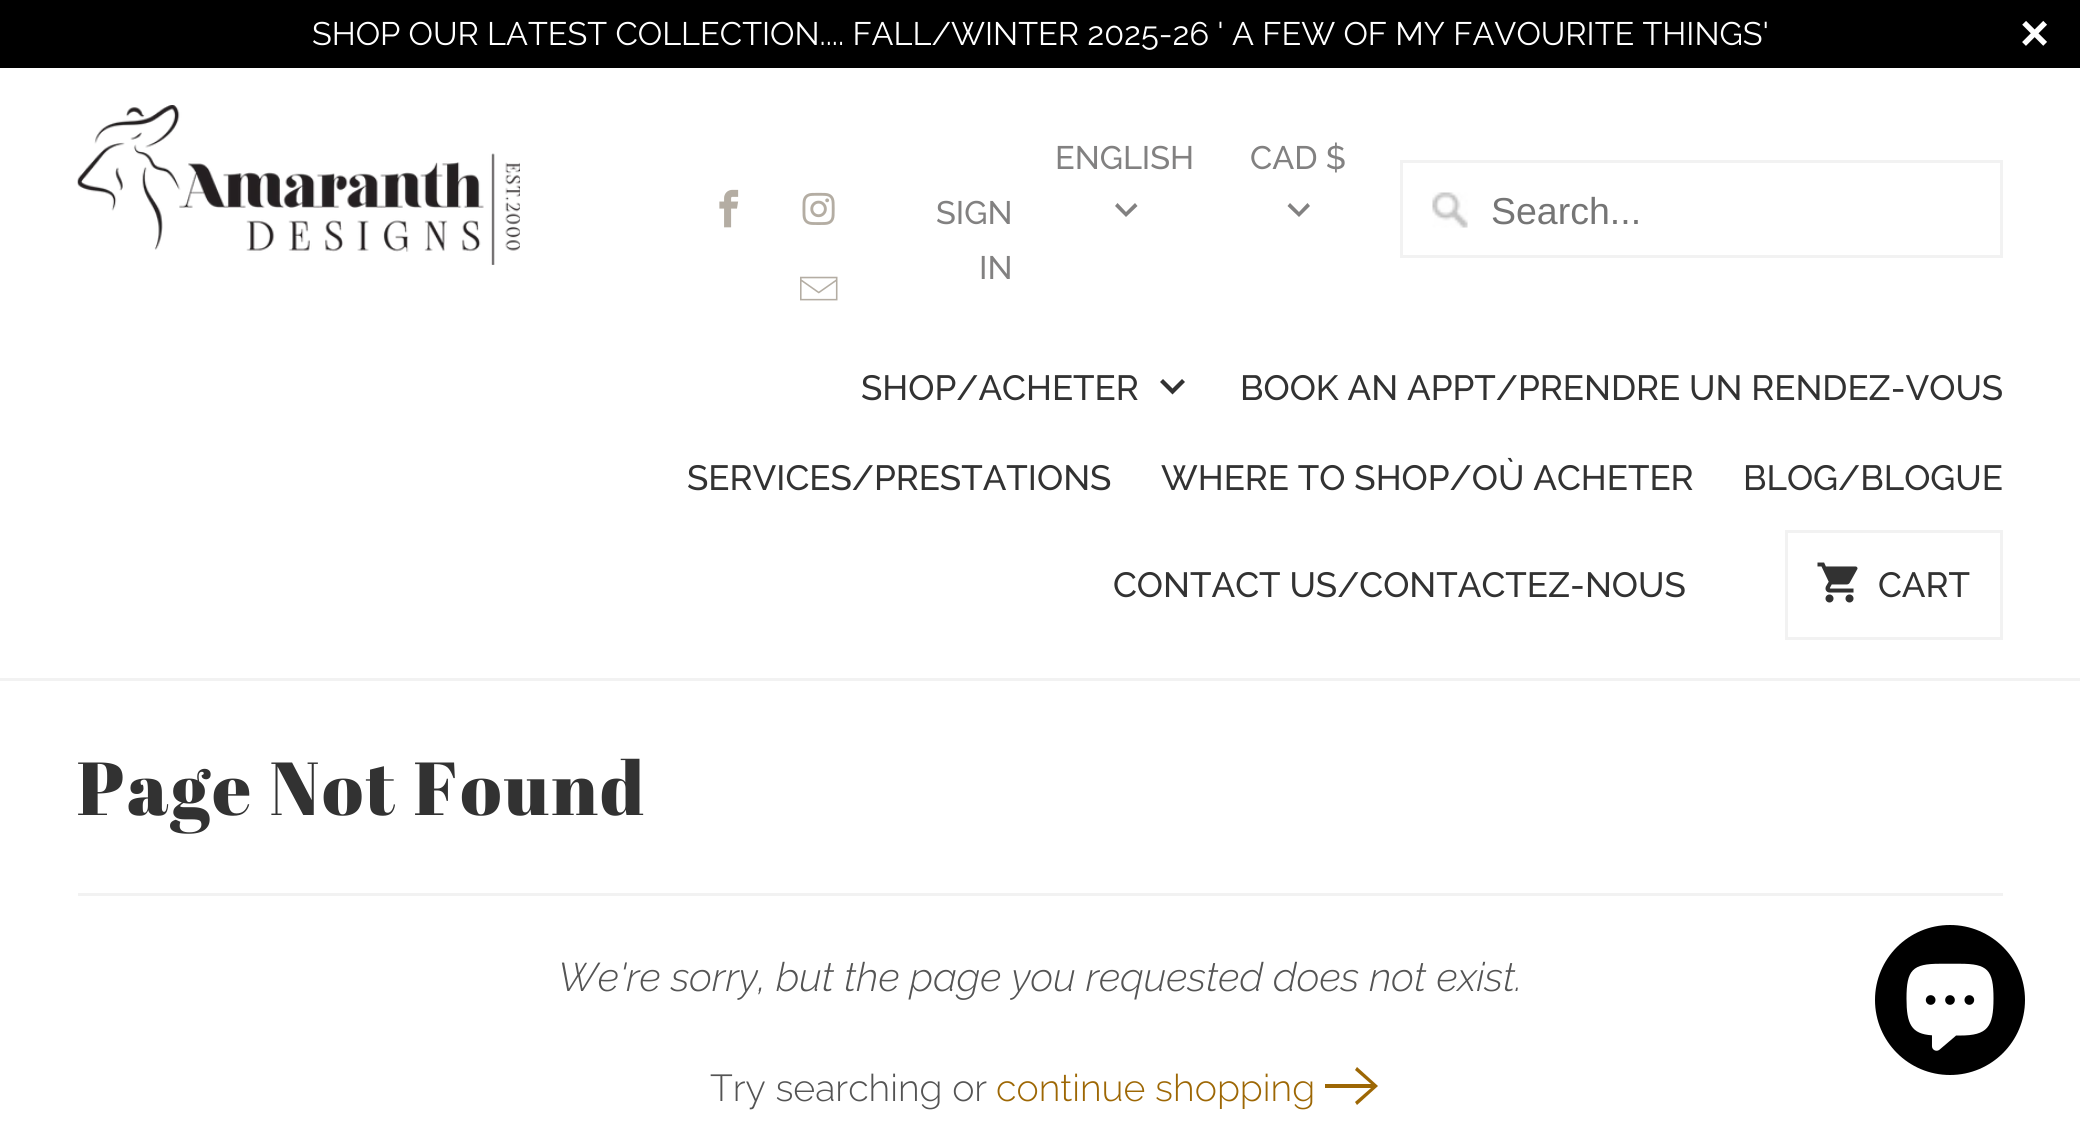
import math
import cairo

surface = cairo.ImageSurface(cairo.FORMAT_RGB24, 2080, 1127)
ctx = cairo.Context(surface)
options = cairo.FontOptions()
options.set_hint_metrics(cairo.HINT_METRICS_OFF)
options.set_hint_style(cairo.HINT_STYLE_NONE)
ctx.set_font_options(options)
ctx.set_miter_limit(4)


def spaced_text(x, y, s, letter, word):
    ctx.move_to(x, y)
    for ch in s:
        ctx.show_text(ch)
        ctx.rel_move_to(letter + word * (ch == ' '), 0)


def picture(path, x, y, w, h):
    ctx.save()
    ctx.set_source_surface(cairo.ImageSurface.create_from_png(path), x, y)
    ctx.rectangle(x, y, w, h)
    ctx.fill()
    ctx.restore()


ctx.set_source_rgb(1, 1, 1)
ctx.paint()
ctx.set_source_rgb(0, 0, 0)
ctx.rectangle(0, 0, 2080, 68)
ctx.fill()
ctx.select_font_face("Raleway")
ctx.set_font_size(32.5)
ctx.set_source_rgb(1, 1, 1)
ctx.move_to(312, 45)
ctx.show_text("SHOP OUR LATEST COLLECTION.... FALL/WINTER 2025-26 ' A FEW OF MY FAVOURITE THINGS'")
ctx.select_font_face("Liberation Sans", cairo.FONT_SLANT_NORMAL, cairo.FONT_WEIGHT_BOLD)
ctx.set_font_size(50)
spaced_text(2020, 50, "×", 2.5, 0)
ctx.set_source_rgb(0.949, 0.949, 0.949)
ctx.rectangle(0, 678, 2080, 3)
ctx.fill()
picture("img1.png", 77, 105, 443, 160)
ctx.select_font_face("Raleway Medium")
ctx.set_font_size(32.5)
ctx.set_source_rgb(0.51, 0.506, 0.506)
ctx.move_to(1055, 169)
ctx.show_text("ENGLISH")
ctx.new_path()
ctx.move_to(1135, 203)
ctx.line_to(1126, 212)
ctx.line_to(1117.5, 203)
ctx.line_to(1115, 206)
ctx.line_to(1126, 217)
ctx.line_to(1137.5, 206)
ctx.close_path()
ctx.fill()
ctx.move_to(1250, 169)
ctx.show_text("CAD $")
ctx.new_path()
ctx.move_to(1307.5, 203)
ctx.line_to(1299, 212)
ctx.line_to(1290, 203)
ctx.line_to(1287.5, 206)
ctx.line_to(1299, 217)
ctx.line_to(1310, 206)
ctx.close_path()
ctx.fill()
picture("img2.png", 719, 189, 20, 39)
picture("img3.png", 802, 192, 33, 33)
picture("img4.png", 800, 276, 38, 25)
ctx.move_to(936, 224)
ctx.show_text("SIGN")
ctx.move_to(979, 279)
ctx.show_text("IN")
picture("img5.png", 1432, 192, 36, 36)
ctx.rectangle(1401.5, 161.5, 600, 95)
ctx.set_source_rgb(0.949, 0.949, 0.949)
ctx.set_line_width(3)
ctx.stroke()
ctx.select_font_face("Liberation Sans")
ctx.set_font_size(37.5)
ctx.set_source_rgb(0.459, 0.459, 0.459)
ctx.move_to(1491, 224)
ctx.show_text("Search...")
ctx.select_font_face("Raleway Medium")
ctx.set_font_size(35)
ctx.set_source_rgb(0.196, 0.196, 0.196)
ctx.move_to(861, 400)
ctx.show_text("SHOP/ACHETER")
ctx.new_path()
ctx.move_to(1182, 379)
ctx.line_to(1172.5, 388.5)
ctx.line_to(1163, 379)
ctx.line_to(1160, 382)
ctx.line_to(1172.5, 394.5)
ctx.line_to(1185, 382)
ctx.close_path()
ctx.fill()
ctx.move_to(1240, 400)
ctx.show_text("BOOK AN APPT/PRENDRE UN RENDEZ-VOUS")
ctx.move_to(687, 490)
ctx.show_text("SERVICES/PRESTATIONS")
ctx.move_to(1161, 490)
ctx.show_text("WHERE TO SHOP/OÙ ACHETER")
ctx.move_to(1743, 490)
ctx.show_text("BLOG/BLOGUE")
ctx.move_to(1113, 597)
ctx.show_text("CONTACT US/CONTACTEZ-NOUS")
ctx.rectangle(1786.5, 531.5, 215, 107)
ctx.set_source_rgb(0.949, 0.949, 0.949)
ctx.stroke()
picture("img6.png", 1817, 562, 41, 41)
ctx.set_source_rgb(0.196, 0.196, 0.196)
ctx.move_to(1878, 597)
ctx.show_text("CART")
ctx.set_source_rgb(0.949, 0.949, 0.949)
ctx.rectangle(78, 893, 1925, 3)
ctx.fill()
ctx.select_font_face("Abril Fatface")
ctx.set_font_size(75)
ctx.set_source_rgb(0.196, 0.196, 0.196)
spaced_text(77, 815, "Page Not Found", 2.5, 0)
ctx.select_font_face("Raleway Light", cairo.FONT_SLANT_ITALIC)
ctx.set_font_size(40)
ctx.set_source_rgb(0.329, 0.329, 0.329)
ctx.move_to(558, 991)
ctx.show_text("We're sorry, but the page you requested does not exist.")
ctx.select_font_face("Raleway Light")
ctx.set_font_size(37.5)
ctx.move_to(710, 1101)
ctx.show_text("Try searching or")
ctx.set_source_rgb(0.616, 0.404, 0.016)
ctx.move_to(996, 1101)
ctx.show_text("continue shopping")
ctx.new_path()
ctx.move_to(1378, 1086)
ctx.line_to(1357, 1105)
ctx.line_to(1355, 1102)
ctx.line_to(1371, 1088)
ctx.line_to(1325, 1088)
ctx.line_to(1325, 1084)
ctx.line_to(1371, 1084)
ctx.line_to(1355, 1070)
ctx.line_to(1357, 1067)
ctx.close_path()
ctx.fill()
ctx.set_source_rgb(0, 0, 0)
ctx.arc(1950, 1000, 75, 0, 2 * math.pi)
ctx.fill()
picture("img7.png", 1906, 963, 88, 88)
surface.write_to_png("page.png")
